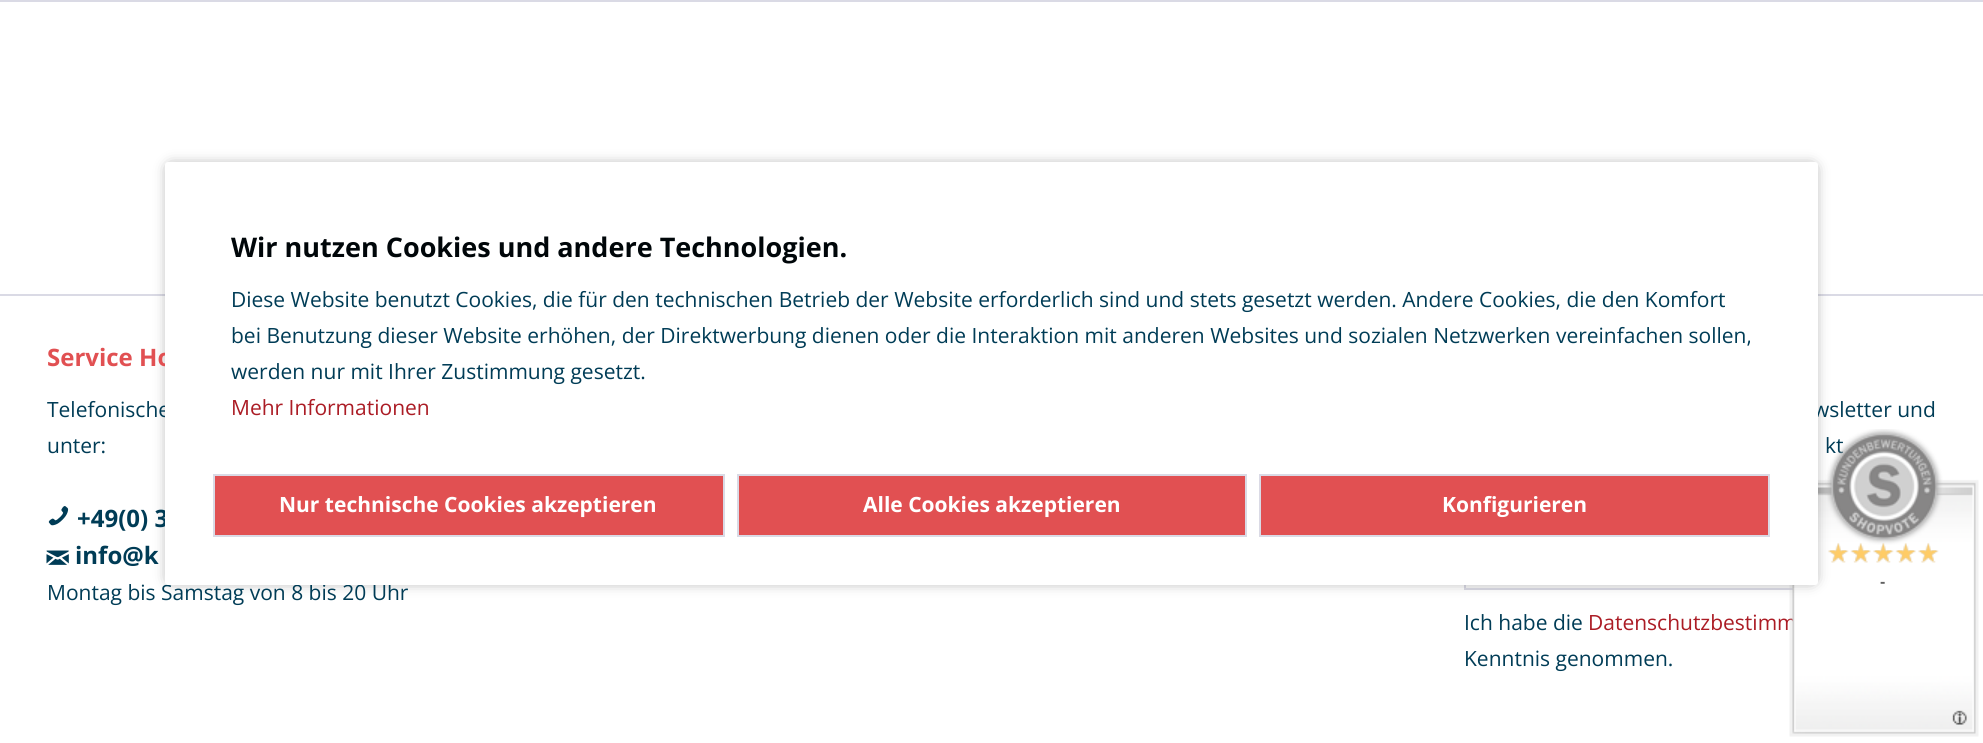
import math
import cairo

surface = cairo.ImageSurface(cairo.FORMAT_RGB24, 1983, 743)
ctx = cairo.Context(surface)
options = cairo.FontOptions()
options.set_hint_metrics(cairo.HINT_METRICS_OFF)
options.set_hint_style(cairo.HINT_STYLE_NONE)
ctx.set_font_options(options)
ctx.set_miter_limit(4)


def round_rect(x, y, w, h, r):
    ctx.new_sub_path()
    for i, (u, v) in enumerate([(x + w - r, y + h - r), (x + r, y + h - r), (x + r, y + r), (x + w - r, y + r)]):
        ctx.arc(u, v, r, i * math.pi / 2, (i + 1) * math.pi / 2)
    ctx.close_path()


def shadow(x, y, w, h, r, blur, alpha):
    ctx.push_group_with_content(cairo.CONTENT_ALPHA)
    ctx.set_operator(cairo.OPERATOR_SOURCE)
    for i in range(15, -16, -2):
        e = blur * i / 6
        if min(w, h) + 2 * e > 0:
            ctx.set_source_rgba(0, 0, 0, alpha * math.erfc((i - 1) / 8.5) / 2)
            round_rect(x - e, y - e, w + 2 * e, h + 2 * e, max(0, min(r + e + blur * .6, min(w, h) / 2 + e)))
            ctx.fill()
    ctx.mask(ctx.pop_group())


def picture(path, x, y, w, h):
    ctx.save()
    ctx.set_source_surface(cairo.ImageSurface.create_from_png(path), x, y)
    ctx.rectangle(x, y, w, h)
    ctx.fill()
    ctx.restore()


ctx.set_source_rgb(1, 1, 1)
ctx.paint()
ctx.set_source_rgb(0.855, 0.855, 0.898)
ctx.rectangle(0, 0, 1983, 2)
ctx.fill()
ctx.rectangle(0, 294, 1983, 2)
ctx.fill()
ctx.set_source_rgb(0.973, 0.973, 0.98)
ctx.rectangle(1466, 585, 327, 3)
ctx.fill()
ctx.set_source_rgb(0.855, 0.855, 0.898)
ctx.rectangle(1464, 588, 329, 2)
ctx.fill()
ctx.rectangle(1464, 585, 2, 5)
ctx.fill()
ctx.select_font_face("Open Sans")
ctx.set_font_size(21)
ctx.set_source_rgb(0, 0.235, 0.337)
ctx.move_to(1825, 453)
ctx.show_text("kt")
ctx.set_source_rgb(0.671, 0.11, 0.145)
ctx.move_to(1588, 630)
ctx.show_text("Datenschutzbestimm")
picture("img3.png", 1789, 429, 190, 308)
picture("img4.png", 1828, 543, 111, 20)
ctx.set_source_rgb(0, 0, 0)
shadow(171, 168, 1641, 411, 0, 7.5, 0.6)
ctx.select_font_face("Open Sans", cairo.FONT_SLANT_NORMAL, cairo.FONT_WEIGHT_BOLD)
ctx.set_font_size(24)
ctx.set_source_rgb(0.882, 0.314, 0.322)
ctx.move_to(47, 366)
ctx.show_text("Service Ho")
ctx.select_font_face("Open Sans")
ctx.set_font_size(21)
ctx.set_source_rgb(0, 0.235, 0.337)
ctx.move_to(47, 417)
ctx.show_text("Telefonische")
ctx.select_font_face("Open Sans", cairo.FONT_SLANT_NORMAL, cairo.FONT_WEIGHT_BOLD)
ctx.set_font_size(24)
ctx.move_to(77, 527)
ctx.show_text("+49(0) 3")
ctx.select_font_face("Open Sans")
ctx.set_font_size(21)
ctx.move_to(47, 600)
ctx.show_text("Montag bis Samstag von 8 bis 20 Uhr")
ctx.move_to(1813, 417)
ctx.show_text("wsletter und")
ctx.set_source_rgb(1, 1, 1)
round_rect(165, 162, 1653, 423, 3)
ctx.fill()
ctx.select_font_face("Open Sans", cairo.FONT_SLANT_NORMAL, cairo.FONT_WEIGHT_BOLD)
ctx.set_font_size(27)
ctx.set_source_rgb(0, 0.027, 0.039)
ctx.move_to(231, 257)
ctx.show_text("Wir nutzen Cookies und andere Technologien.")
ctx.select_font_face("Open Sans")
ctx.set_font_size(21)
ctx.set_source_rgb(0, 0.235, 0.337)
ctx.move_to(231, 307)
ctx.show_text("Diese Website benutzt Cookies, die für den technischen Betrieb der Website erforderlich sind und stets gesetzt werden. Andere Cookies, die den Komfort")
ctx.move_to(231, 343)
ctx.show_text("bei Benutzung dieser Website erhöhen, der Direktwerbung dienen oder die Interaktion mit anderen Websites und sozialen Netzwerken vereinfachen sollen,")
ctx.move_to(231, 379)
ctx.show_text("werden nur mit Ihrer Zustimmung gesetzt.")
ctx.set_source_rgb(0.671, 0.11, 0.145)
ctx.move_to(231, 415)
ctx.show_text("Mehr Informationen")
ctx.set_source_rgb(0.882, 0.314, 0.322)
ctx.rectangle(214, 475, 510, 61)
ctx.fill_preserve()
ctx.set_source_rgb(0.855, 0.855, 0.898)
ctx.stroke()
ctx.select_font_face("Open Sans", cairo.FONT_SLANT_NORMAL, cairo.FONT_WEIGHT_BOLD)
ctx.set_source_rgb(1, 1, 1)
ctx.move_to(279, 512)
ctx.show_text("Nur technische Cookies akzeptieren")
ctx.set_source_rgb(0.882, 0.314, 0.322)
ctx.rectangle(738, 475, 508, 61)
ctx.fill_preserve()
ctx.set_source_rgb(0.855, 0.855, 0.898)
ctx.stroke()
ctx.set_source_rgb(1, 1, 1)
ctx.move_to(863, 512)
ctx.show_text("Alle Cookies akzeptieren")
ctx.set_source_rgb(0.882, 0.314, 0.322)
ctx.rectangle(1260, 475, 509, 61)
ctx.fill_preserve()
ctx.set_source_rgb(0.855, 0.855, 0.898)
ctx.stroke()
ctx.set_source_rgb(1, 1, 1)
ctx.move_to(1442, 512)
ctx.show_text("Konfigurieren")
ctx.select_font_face("Open Sans")
ctx.set_source_rgb(0, 0.235, 0.337)
ctx.move_to(47, 453)
ctx.show_text("unter:")
picture("img1.png", 48, 506, 21, 20)
picture("img2.png", 46, 550, 23, 15)
ctx.select_font_face("Open Sans", cairo.FONT_SLANT_NORMAL, cairo.FONT_WEIGHT_BOLD)
ctx.set_font_size(24)
ctx.move_to(75, 564)
ctx.show_text("info@k")
ctx.select_font_face("Open Sans")
ctx.set_font_size(21)
ctx.move_to(1464, 630)
ctx.show_text("Ich habe die")
ctx.move_to(1464, 666)
ctx.show_text("Kenntnis genommen.")
ctx.select_font_face("Liberation Sans", cairo.FONT_SLANT_NORMAL, cairo.FONT_WEIGHT_BOLD)
ctx.set_font_size(16)
ctx.set_source_rgb(0.376, 0.376, 0.376)
ctx.move_to(1880, 587)
ctx.show_text("-")
surface.write_to_png("page.png")
